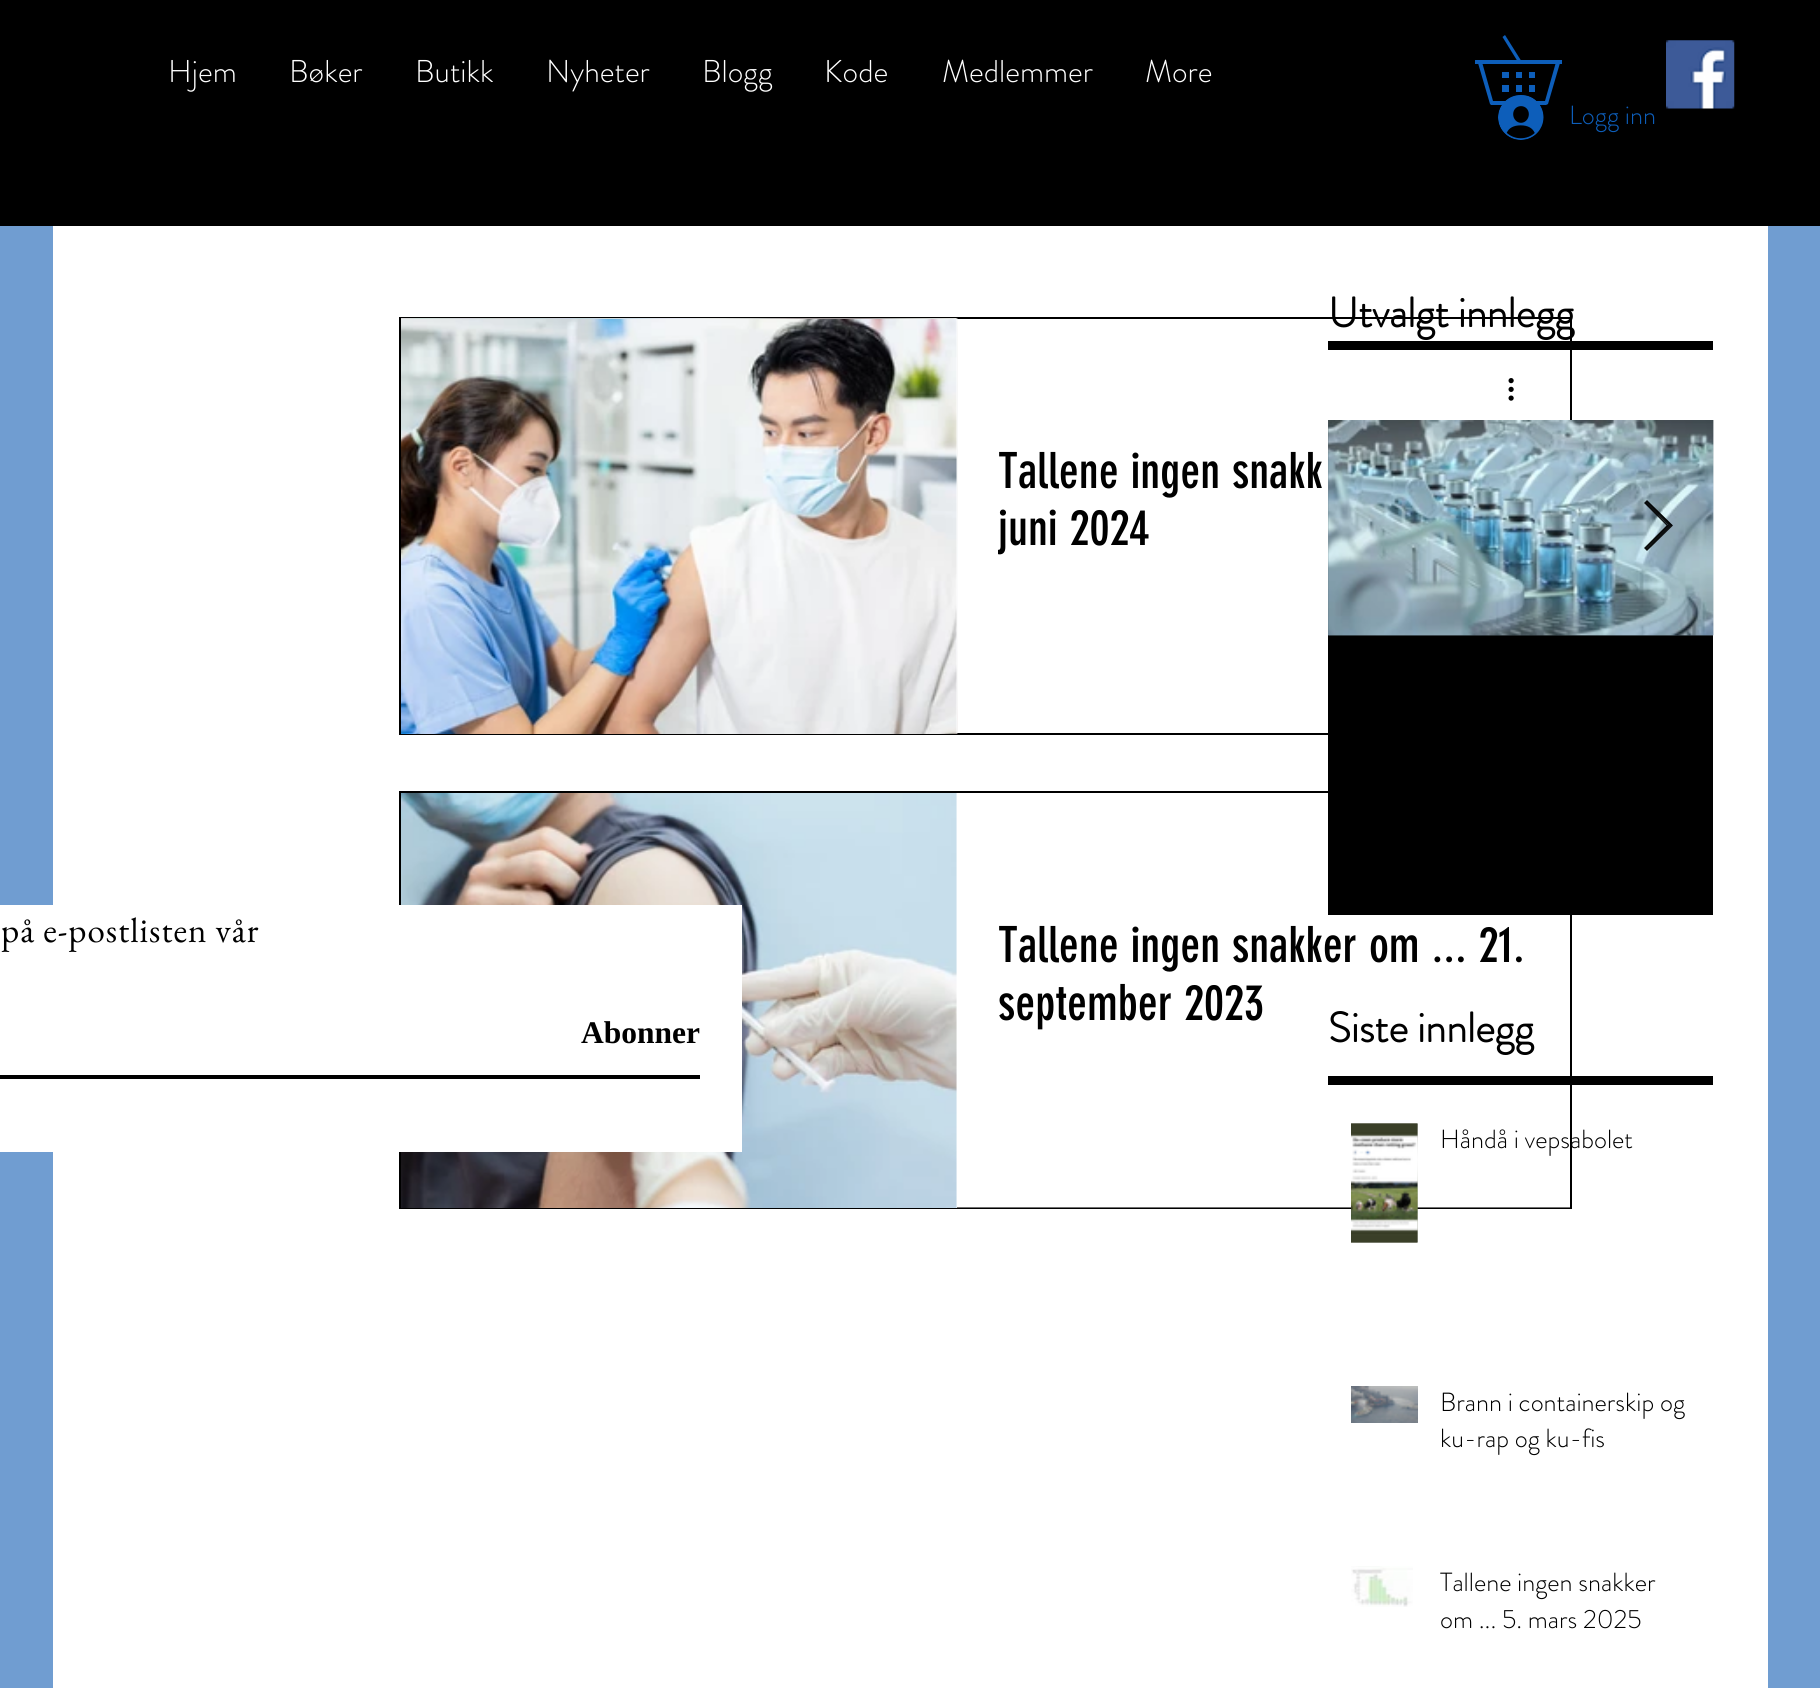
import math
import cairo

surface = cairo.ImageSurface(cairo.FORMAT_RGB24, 1820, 1688)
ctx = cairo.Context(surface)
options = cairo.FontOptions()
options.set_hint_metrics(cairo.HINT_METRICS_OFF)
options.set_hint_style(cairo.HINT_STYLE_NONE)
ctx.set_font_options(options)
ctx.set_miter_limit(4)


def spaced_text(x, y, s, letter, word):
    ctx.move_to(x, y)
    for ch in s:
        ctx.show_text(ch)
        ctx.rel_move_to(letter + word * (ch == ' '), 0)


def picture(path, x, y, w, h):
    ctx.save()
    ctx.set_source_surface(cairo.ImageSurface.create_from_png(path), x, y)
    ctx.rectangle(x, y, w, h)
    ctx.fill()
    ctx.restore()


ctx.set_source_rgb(0.439, 0.616, 0.82)
ctx.paint()
ctx.set_source_rgb(0, 0, 0)
ctx.rectangle(0, 0, 1820, 226)
ctx.fill()
ctx.select_font_face("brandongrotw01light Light")
ctx.set_font_size(31.5)
ctx.set_source_rgb(1, 1, 1)
ctx.move_to(168, 82)
ctx.show_text("Hjem")
ctx.move_to(289, 82)
ctx.show_text("Bøker")
ctx.move_to(415, 82)
ctx.show_text("Butikk")
ctx.move_to(546, 82)
ctx.show_text("Nyheter")
ctx.move_to(702, 82)
ctx.show_text("Blogg")
ctx.move_to(824, 82)
ctx.show_text("Kode")
ctx.move_to(942, 82)
ctx.show_text("Medlemmer")
ctx.move_to(1145, 82)
ctx.show_text("More")
ctx.set_source_rgb(0.051, 0.369, 0.729)
ctx.rectangle(1475, 60, 87, 4)
ctx.fill()
ctx.new_path()
ctx.move_to(1546, 105)
ctx.line_to(1491, 105)
ctx.curve_to(1491, 105, 1490, 104, 1490, 104)
ctx.line_to(1478, 63)
ctx.line_to(1482, 62)
ctx.line_to(1493, 101)
ctx.line_to(1545, 101)
ctx.line_to(1556, 62)
ctx.line_to(1560, 63)
ctx.line_to(1548, 104)
ctx.close_path()
ctx.fill()
ctx.new_path()
ctx.move_to(1518, 62)
ctx.line_to(1502.5, 37)
ctx.line_to(1505, 35)
ctx.line_to(1521, 60.5)
ctx.close_path()
ctx.fill()
ctx.rectangle(1516, 72, 6, 6)
ctx.fill()
ctx.rectangle(1529, 72, 6, 6)
ctx.fill()
ctx.rectangle(1502, 72, 7, 6)
ctx.fill()
ctx.rectangle(1516, 85, 6, 7)
ctx.fill()
ctx.rectangle(1529, 85, 6, 7)
ctx.fill()
ctx.rectangle(1502, 85, 7, 7)
ctx.fill()
picture("img1.png", 1666, 40, 69, 69)
picture("img2.png", 1498, 95, 46, 45)
ctx.set_font_size(26.25)
ctx.move_to(1569, 124)
ctx.show_text("Logg inn")
ctx.set_source_rgb(1, 1, 1)
ctx.rectangle(53, 226, 1715, 1462)
ctx.fill()
ctx.rectangle(400, 318, 1171, 416)
ctx.set_source_rgb(0, 0, 0)
ctx.stroke()
ctx.select_font_face("brandongrotw01light", cairo.FONT_SLANT_NORMAL, cairo.FONT_WEIGHT_BOLD)
ctx.set_font_size(42)
ctx.move_to(1328, 327)
ctx.show_text("Utvalgt innlegg")
ctx.rectangle(1328, 341, 385, 9)
ctx.fill()
ctx.rectangle(400, 792, 1171, 416)
ctx.stroke()
picture("img8.png", 401, 793, 556, 415)
ctx.set_source_rgba(1, 1, 1, 0.44)
ctx.rectangle(956, 793, 614, 415)
ctx.fill()
ctx.set_source_rgb(0, 0, 0)
ctx.rectangle(1328, 420, 385, 495)
ctx.fill()
picture("img3.png", 1328, 420, 386, 216)
picture("img4.png", 1328, 420, 386, 216)
ctx.set_source_rgba(0, 0, 0, 0.9)
ctx.new_path()
ctx.move_to(1645, 503)
ctx.line_to(1647, 501)
ctx.line_to(1672, 525)
ctx.line_to(1647, 550)
ctx.line_to(1645, 548)
ctx.line_to(1668, 525)
ctx.close_path()
ctx.fill()
ctx.new_path()
ctx.move_to(1645, 503)
ctx.line_to(1647, 501)
ctx.line_to(1672, 525.5)
ctx.line_to(1647, 550)
ctx.line_to(1645, 548)
ctx.line_to(1667.5, 525.5)
ctx.close_path()
ctx.set_line_width(1.4)
ctx.stroke()
ctx.set_source_rgb(1, 1, 1)
ctx.rectangle(0, 905, 742, 247)
ctx.fill()
ctx.select_font_face("EB Garamond")
ctx.set_font_size(35)
ctx.set_source_rgb(0, 0, 0)
spaced_text(1, 942, "på e-postlisten vår", 1, 0)
ctx.select_font_face("Liberation Serif", cairo.FONT_SLANT_NORMAL, cairo.FONT_WEIGHT_BOLD)
ctx.set_font_size(31.5)
ctx.move_to(581, 1043)
ctx.show_text("Abonner")
ctx.rectangle(0, 1075, 700, 4)
ctx.fill()
picture("img5.png", 401, 318, 557, 416)
picture("img6.png", 401, 319, 556, 415)
ctx.set_source_rgba(1, 1, 1, 0.44)
ctx.rectangle(956, 319, 2, 414)
ctx.fill()
picture("img7.png", 1508, 378, 6, 23)
ctx.select_font_face("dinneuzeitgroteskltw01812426")
ctx.set_font_size(49)
ctx.set_source_rgb(0, 0, 0)
ctx.move_to(998, 488)
ctx.show_text("Tallene ingen snakk")
ctx.save()
ctx.rectangle(998, 443, 530, 115)
ctx.clip()
ctx.move_to(998, 545)
ctx.show_text("juni 2024")
ctx.restore()
ctx.move_to(998, 962)
ctx.show_text("Tallene ingen snakker om ... 21.")
ctx.move_to(998, 1020)
ctx.show_text("september 2023")
ctx.select_font_face("brandongrotw01light", cairo.FONT_SLANT_NORMAL, cairo.FONT_WEIGHT_BOLD)
ctx.set_font_size(42)
ctx.move_to(1328, 1042)
ctx.show_text("Siste innlegg")
ctx.rectangle(1328, 1076, 385, 9)
ctx.fill()
picture("img9.png", 1351, 1123, 67, 120)
picture("img10.png", 1351, 1123, 67, 120)
ctx.select_font_face("brandongrotw01light Light")
ctx.set_font_size(26.25)
ctx.move_to(1440, 1148)
ctx.show_text("Håndå i vepsabolet")
picture("img11.png", 1351, 1386, 67, 37)
ctx.move_to(1440, 1411)
ctx.show_text("Brann i containerskip og")
ctx.move_to(1440, 1447)
ctx.show_text("ku-rap og ku-fis")
picture("img12.png", 1351, 1566, 62, 41)
picture("img13.png", 1351, 1567, 62, 40)
ctx.move_to(1440, 1591)
ctx.show_text("Tallene ingen snakker")
ctx.move_to(1440, 1628)
ctx.show_text("om ... 5. mars 2025")
surface.write_to_png("page.png")
